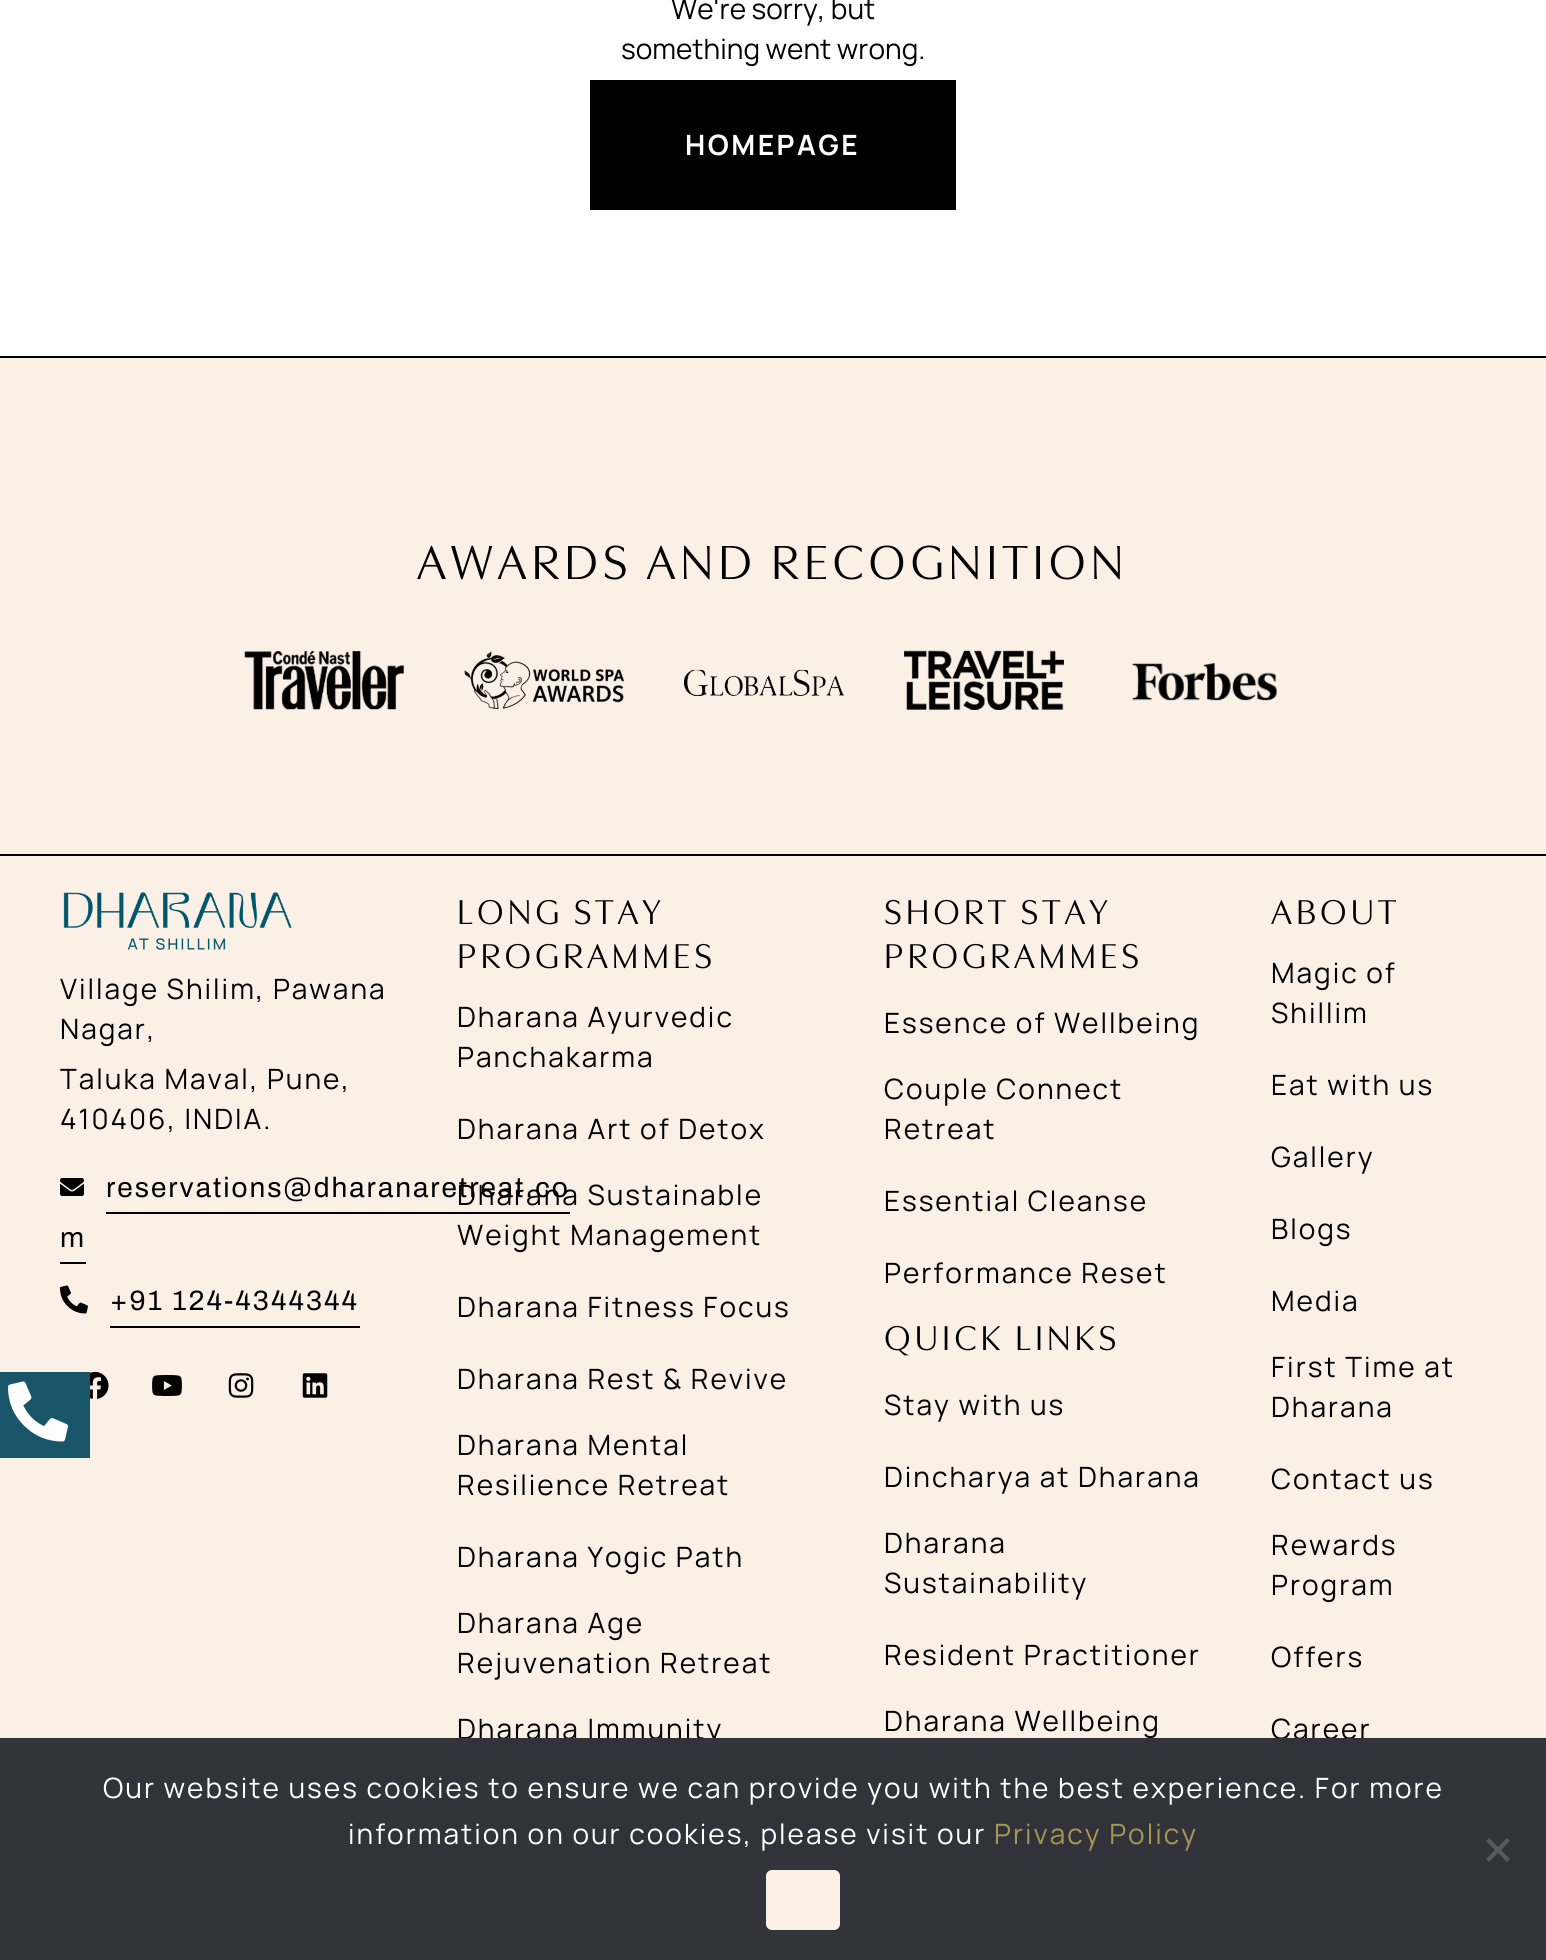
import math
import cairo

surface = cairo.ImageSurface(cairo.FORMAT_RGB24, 1546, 1960)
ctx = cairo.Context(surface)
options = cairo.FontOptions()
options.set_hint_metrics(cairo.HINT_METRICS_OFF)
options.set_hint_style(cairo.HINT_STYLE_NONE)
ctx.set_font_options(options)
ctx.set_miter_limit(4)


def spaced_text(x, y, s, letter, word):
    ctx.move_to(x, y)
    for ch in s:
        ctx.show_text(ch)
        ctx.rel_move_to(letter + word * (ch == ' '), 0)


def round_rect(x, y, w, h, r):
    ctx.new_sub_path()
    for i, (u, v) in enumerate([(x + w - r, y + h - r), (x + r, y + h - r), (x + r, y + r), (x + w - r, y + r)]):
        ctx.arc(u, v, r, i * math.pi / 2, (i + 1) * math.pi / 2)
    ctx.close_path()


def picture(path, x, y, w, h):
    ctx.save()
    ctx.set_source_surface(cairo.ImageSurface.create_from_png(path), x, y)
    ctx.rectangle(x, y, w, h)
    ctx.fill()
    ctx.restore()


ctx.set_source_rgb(1, 1, 1)
ctx.paint()
ctx.select_font_face("Manrope")
ctx.set_font_size(28)
ctx.set_source_rgb(0, 0, 0)
ctx.move_to(671, 19)
ctx.show_text("We're sorry, but")
ctx.move_to(621, 59)
ctx.show_text("something went wrong.")
ctx.rectangle(590, 80, 366, 130)
ctx.fill()
ctx.select_font_face("Manrope", cairo.FONT_SLANT_NORMAL, cairo.FONT_WEIGHT_BOLD)
ctx.set_source_rgb(1, 1, 1)
spaced_text(685, 155, "HOMEPAGE", 2.5, 0)
ctx.set_source_rgb(0.98, 0.941, 0.902)
ctx.rectangle(0, 856, 1546, 882)
ctx.fill()
ctx.set_source_rgb(0.098, 0.333, 0.412)
ctx.rectangle(0, 1372, 90, 86)
ctx.fill()
picture("img1.png", 8, 1381, 60, 61)
ctx.set_source_rgb(0.98, 0.941, 0.902)
ctx.rectangle(0, 358, 1546, 496)
ctx.fill()
ctx.set_source_rgb(0, 0, 0)
ctx.rectangle(0, 356, 1546, 2)
ctx.fill()
ctx.select_font_face("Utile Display")
ctx.set_font_size(50)
spaced_text(417, 579, "AWARDS AND RECOGNITION", 5, 0)
picture("img2.png", 244, 651, 160, 59)
picture("img3.png", 464, 651, 160, 58)
picture("img4.png", 684, 669, 160, 27)
picture("img5.png", 904, 650, 160, 60)
picture("img6.png", 1132, 663, 145, 38)
ctx.rectangle(0, 854, 1546, 2)
ctx.fill()
picture("img7.png", 63, 892, 229, 58)
ctx.select_font_face("Manrope")
ctx.set_font_size(28)
spaced_text(60, 999, "Village Shilim, Pawana", 2, 0)
spaced_text(60, 1039, "Nagar,", 2, 0)
spaced_text(60, 1089, "Taluka Maval, Pune,", 2, 0)
spaced_text(60, 1129, "410406, INDIA.", 2, 0)
picture("img8.png", 60, 1178, 24, 18)
ctx.select_font_face("Archivo")
spaced_text(106, 1197, "reservations@dharanaretreat.co", 2, 0)
ctx.rectangle(106, 1212, 464, 2)
ctx.fill()
spaced_text(60, 1247, "m", 2, 0)
ctx.rectangle(60, 1262, 26, 2)
ctx.fill()
picture("img9.png", 60, 1285, 28, 29)
spaced_text(110, 1310, "+91 124-4344344", 2, 0)
ctx.rectangle(110, 1326, 250, 2)
ctx.fill()
picture("img10.png", 90, 1371, 19, 28)
picture("img11.png", 152, 1375, 30, 21)
picture("img12.png", 228, 1373, 26, 25)
picture("img13.png", 302, 1373, 26, 25)
ctx.select_font_face("Utile Display")
ctx.set_font_size(36)
spaced_text(457, 924, "LONG STAY", 4, 0)
spaced_text(457, 968, "PROGRAMMES", 4, 0)
ctx.select_font_face("Manrope")
ctx.set_font_size(28)
spaced_text(457, 1027, "Dharana Ayurvedic", 2, 0)
spaced_text(457, 1067, "Panchakarma", 2, 0)
spaced_text(457, 1139, "Dharana Art of Detox", 2, 0)
spaced_text(457, 1205, "Dharana Sustainable", 2, 0)
spaced_text(457, 1245, "Weight Management", 2, 0)
spaced_text(457, 1317, "Dharana Fitness Focus", 2, 0)
spaced_text(457, 1389, "Dharana Rest & Revive", 2, 0)
spaced_text(457, 1455, "Dharana Mental", 2, 0)
spaced_text(457, 1495, "Resilience Retreat", 2, 0)
spaced_text(457, 1567, "Dharana Yogic Path", 2, 0)
spaced_text(457, 1633, "Dharana Age", 2, 0)
spaced_text(457, 1673, "Rejuvenation Retreat", 2, 0)
spaced_text(457, 1739, "Dharana Immunity", 2, 0)
ctx.select_font_face("Utile Display")
ctx.set_font_size(36)
spaced_text(884, 924, "SHORT STAY", 4, 0)
spaced_text(884, 968, "PROGRAMMES", 4, 0)
ctx.select_font_face("Manrope")
ctx.set_font_size(28)
spaced_text(884, 1033, "Essence of Wellbeing", 2, 0)
spaced_text(884, 1099, "Couple Connect", 2, 0)
spaced_text(884, 1139, "Retreat", 2, 0)
spaced_text(884, 1211, "Essential Cleanse", 2, 0)
spaced_text(884, 1283, "Performance Reset", 2, 0)
ctx.select_font_face("Utile Display")
ctx.set_font_size(36)
spaced_text(884, 1350, "QUICK LINKS", 4, 0)
ctx.select_font_face("Manrope")
ctx.set_font_size(28)
spaced_text(884, 1415, "Stay with us", 2, 0)
spaced_text(884, 1487, "Dincharya at Dharana", 2, 0)
spaced_text(884, 1553, "Dharana", 2, 0)
spaced_text(884, 1593, "Sustainability", 2, 0)
spaced_text(884, 1665, "Resident Practitioner", 2, 0)
spaced_text(884, 1731, "Dharana Wellbeing", 2, 0)
ctx.select_font_face("Utile Display")
ctx.set_font_size(36)
spaced_text(1271, 924, "ABOUT", 4, 0)
ctx.select_font_face("Manrope")
ctx.set_font_size(28)
spaced_text(1271, 983, "Magic of", 2, 0)
spaced_text(1271, 1023, "Shillim", 2, 0)
spaced_text(1271, 1095, "Eat with us", 2, 0)
spaced_text(1271, 1167, "Gallery", 2, 0)
spaced_text(1271, 1239, "Blogs", 2, 0)
spaced_text(1271, 1311, "Media", 2, 0)
spaced_text(1271, 1377, "First Time at", 2, 0)
spaced_text(1271, 1417, "Dharana", 2, 0)
spaced_text(1271, 1489, "Contact us", 2, 0)
spaced_text(1271, 1555, "Rewards", 2, 0)
spaced_text(1271, 1595, "Program", 2, 0)
spaced_text(1271, 1667, "Offers", 2, 0)
spaced_text(1271, 1739, "Career", 2, 0)
ctx.set_source_rgb(0.196, 0.196, 0.227)
ctx.rectangle(0, 1738, 1546, 222)
ctx.fill()
ctx.set_source_rgb(1, 1, 1)
spaced_text(103, 1798, "Our website uses cookies to ensure we can provide you with the best experience. For more", 2, 0)
spaced_text(348, 1844, "information on our cookies, please visit our", 2, 0)
ctx.set_source_rgb(0.647, 0.588, 0.314)
spaced_text(994, 1844, "Privacy Policy", 2, 0)
ctx.set_source_rgb(0.349, 0.349, 0.365)
ctx.new_path()
ctx.move_to(1507, 1838)
ctx.line_to(1510, 1841)
ctx.line_to(1489, 1862)
ctx.line_to(1486, 1859)
ctx.close_path()
ctx.fill()
ctx.new_path()
ctx.move_to(1486, 1841)
ctx.line_to(1489, 1838)
ctx.line_to(1510, 1859)
ctx.line_to(1507, 1862)
ctx.close_path()
ctx.fill()
ctx.set_source_rgb(0.98, 0.941, 0.902)
round_rect(766, 1870, 74, 60, 6)
ctx.fill()
surface.write_to_png("page.png")
